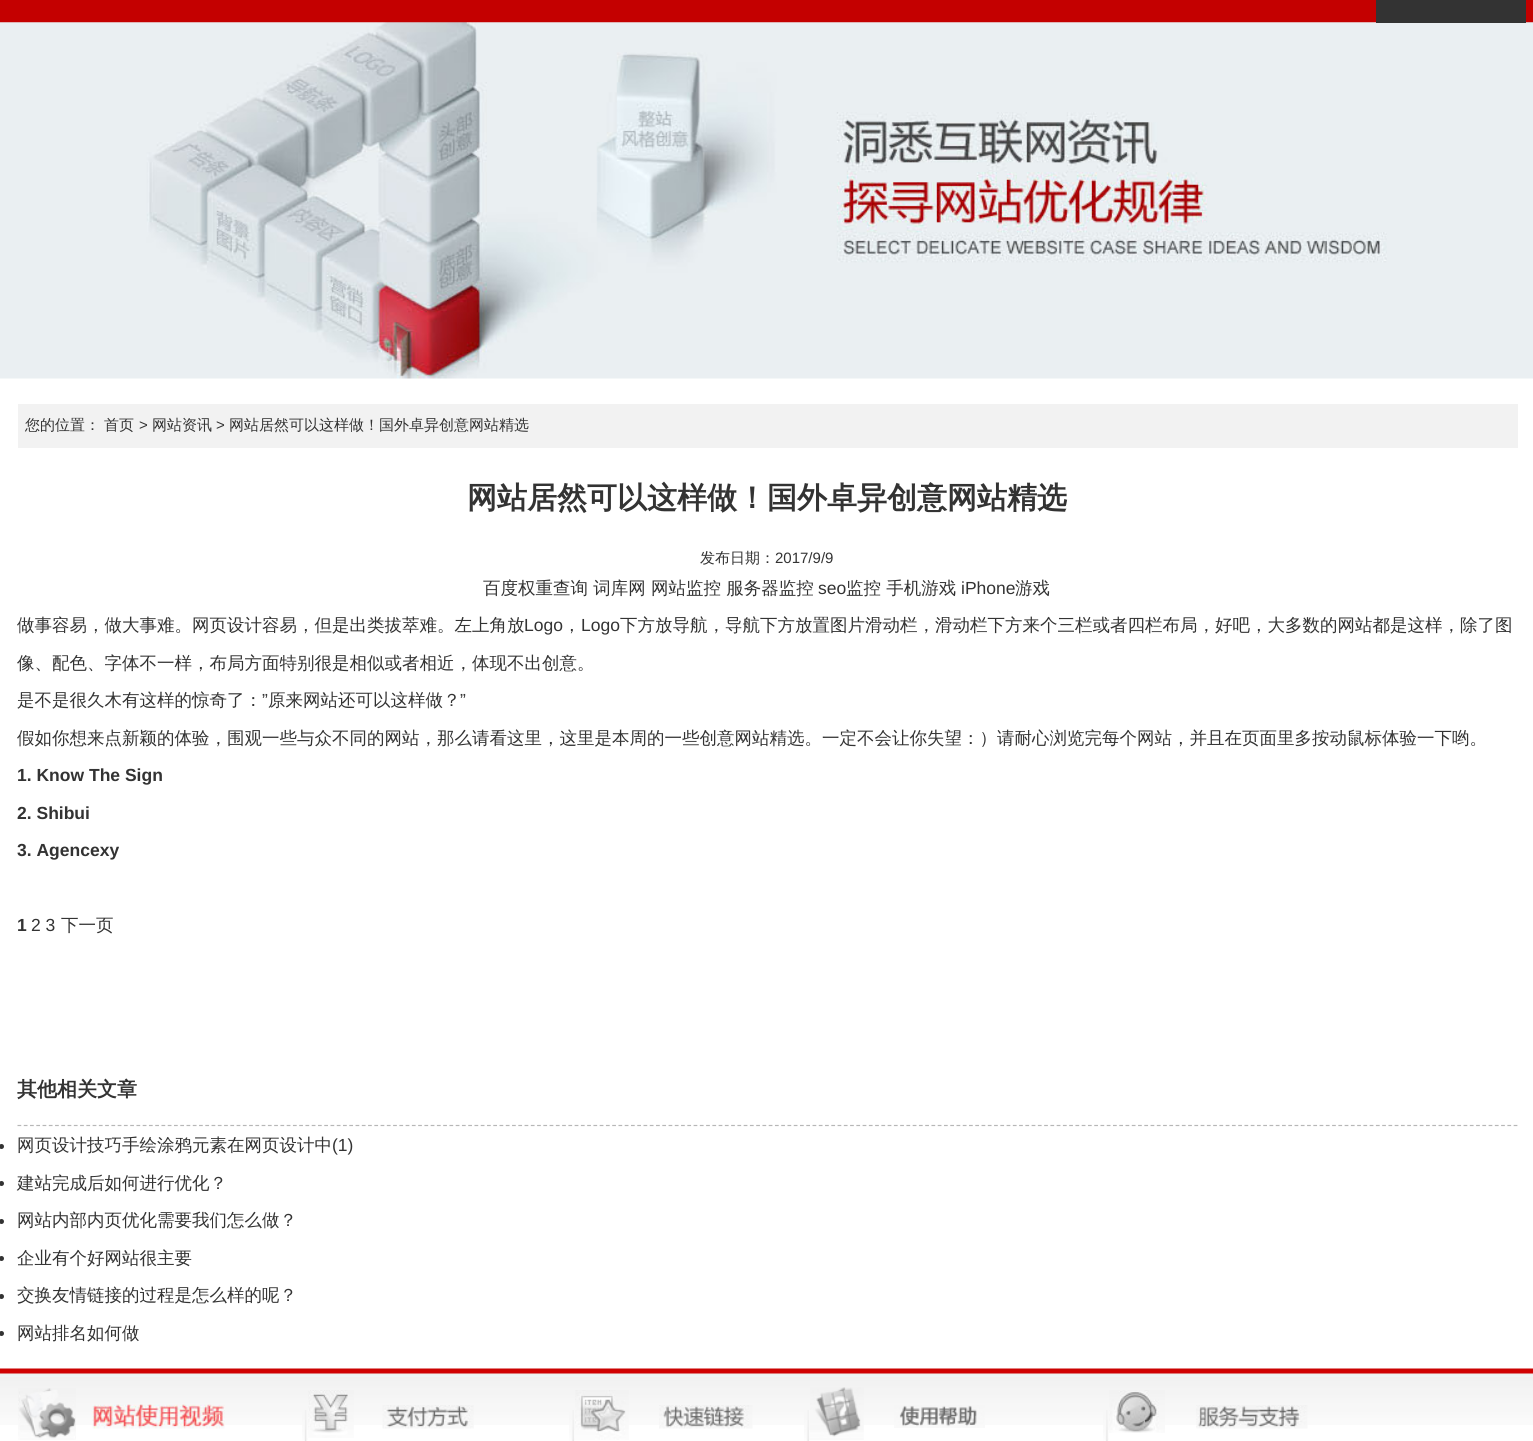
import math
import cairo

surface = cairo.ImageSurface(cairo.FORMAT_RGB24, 1533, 1441)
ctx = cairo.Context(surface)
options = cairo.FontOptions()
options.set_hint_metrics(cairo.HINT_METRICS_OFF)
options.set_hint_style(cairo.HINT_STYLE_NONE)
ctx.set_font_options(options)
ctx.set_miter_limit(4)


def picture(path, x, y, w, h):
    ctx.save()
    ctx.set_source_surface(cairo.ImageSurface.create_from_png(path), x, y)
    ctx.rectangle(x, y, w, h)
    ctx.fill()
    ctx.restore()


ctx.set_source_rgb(1, 1, 1)
ctx.paint()
ctx.set_source_rgb(0.769, 0, 0)
ctx.rectangle(0, 0, 1533, 23)
ctx.fill()
picture("img1.png", 0, 22, 1533, 357)
ctx.set_source_rgb(0.2, 0.2, 0.2)
ctx.rectangle(1376, 0, 150, 23)
ctx.fill()
ctx.set_source_rgb(0.949, 0.949, 0.949)
ctx.rectangle(18, 404, 1500, 44)
ctx.fill()
ctx.select_font_face("WenQuanYi Zen Hei Medium")
ctx.set_font_size(15)
ctx.set_source_rgb(0.2, 0.2, 0.2)
ctx.move_to(25, 430)
ctx.show_text("您的位置：")
ctx.move_to(104, 430)
ctx.show_text("首页")
ctx.select_font_face("Liberation Sans")
ctx.move_to(139, 430)
ctx.show_text(">")
ctx.select_font_face("WenQuanYi Zen Hei Medium")
ctx.move_to(152, 430)
ctx.show_text("网站资讯")
ctx.select_font_face("Liberation Sans")
ctx.move_to(216, 430)
ctx.show_text(">")
ctx.select_font_face("WenQuanYi Zen Hei Medium")
ctx.move_to(229, 430)
ctx.show_text("网站居然可以这样做！国外卓异创意网站精选")
ctx.select_font_face("WenQuanYi Zen Hei", cairo.FONT_SLANT_NORMAL, cairo.FONT_WEIGHT_BOLD)
ctx.set_font_size(30)
ctx.move_to(467, 508)
ctx.show_text("网站居然可以这样做！国外卓异创意网站精选")
ctx.select_font_face("WenQuanYi Zen Hei Medium")
ctx.set_font_size(15)
ctx.move_to(700, 563)
ctx.show_text("发布日期：")
ctx.select_font_face("Liberation Sans")
ctx.move_to(775, 563)
ctx.show_text("2017/9/9")
ctx.select_font_face("WenQuanYi Zen Hei Medium")
ctx.set_font_size(17.5)
ctx.move_to(483, 594)
ctx.show_text("百度权重查询 词库网")
ctx.move_to(651, 594)
ctx.show_text("网站")
ctx.move_to(686, 594)
ctx.show_text("监控 服务器监控")
ctx.select_font_face("Liberation Sans")
ctx.move_to(818, 594)
ctx.show_text("seo")
ctx.select_font_face("WenQuanYi Zen Hei Medium")
ctx.move_to(846, 594)
ctx.show_text("监控 手机游戏")
ctx.select_font_face("Liberation Sans")
ctx.move_to(961, 594)
ctx.show_text("iPhone")
ctx.select_font_face("WenQuanYi Zen Hei Medium")
ctx.move_to(1015, 594)
ctx.show_text("游戏")
ctx.move_to(17, 631)
ctx.show_text("做事容易，做大事难。网页设计容易，但是出类拔萃难。左上角放")
ctx.select_font_face("Liberation Sans")
ctx.move_to(524, 631)
ctx.show_text("Logo")
ctx.select_font_face("WenQuanYi Zen Hei Medium")
ctx.move_to(563, 631)
ctx.show_text("，")
ctx.select_font_face("Liberation Sans")
ctx.move_to(581, 631)
ctx.show_text("Logo")
ctx.select_font_face("WenQuanYi Zen Hei Medium")
ctx.move_to(620, 631)
ctx.show_text("下方放导航，导航下方放置图片滑动栏，滑动栏下方来个三栏或者四栏布局，好吧，大多数的网站都是这样，除了图")
ctx.move_to(17, 669)
ctx.show_text("像、配色、字体不一样，布局方面特别很是相似或者相近，体现不出创意。")
ctx.move_to(17, 706)
ctx.show_text("是不是很久木有这样的惊奇了：")
ctx.select_font_face("Liberation Sans")
ctx.move_to(262, 706)
ctx.show_text("”")
ctx.select_font_face("WenQuanYi Zen Hei Medium")
ctx.move_to(268, 706)
ctx.show_text("原来网站还可以这样做？")
ctx.select_font_face("Liberation Sans")
ctx.move_to(460, 706)
ctx.show_text("”")
ctx.select_font_face("WenQuanYi Zen Hei Medium")
ctx.move_to(17, 744)
ctx.show_text("假如你想来点新颖的体验，围观一些与众不同的网站，那么请看这里，这里是本周的一些创意网站精选。一定不会让你失望：）请耐心浏览完每个网站，并且在页面里多按动鼠标体验一下哟。")
ctx.select_font_face("Liberation Sans", cairo.FONT_SLANT_NORMAL, cairo.FONT_WEIGHT_BOLD)
ctx.move_to(17, 781)
ctx.show_text("1. Know The Sign")
ctx.move_to(17, 819)
ctx.show_text("2. Shibui")
ctx.move_to(17, 856)
ctx.show_text("3. Agencexy")
ctx.move_to(17, 931)
ctx.show_text("1")
ctx.select_font_face("Liberation Sans")
ctx.move_to(31, 931)
ctx.show_text("2 3")
ctx.select_font_face("WenQuanYi Zen Hei Medium")
ctx.move_to(61, 931)
ctx.show_text("下一页")
ctx.new_path()
ctx.move_to(17.5, 1125.5)
ctx.line_to(1517.5, 1125.5)
ctx.set_source_rgb(0.718, 0.718, 0.718)
ctx.set_line_width(1.2)
ctx.set_dash([3.75, 2.51])
ctx.stroke()
ctx.select_font_face("WenQuanYi Zen Hei", cairo.FONT_SLANT_NORMAL, cairo.FONT_WEIGHT_BOLD)
ctx.set_font_size(20)
ctx.set_source_rgb(0.2, 0.2, 0.2)
ctx.move_to(17, 1096)
ctx.show_text("其他相关文章")
ctx.new_path()
ctx.arc(1.5, 1146.5, 2.5, 0, 2 * math.pi)
ctx.fill()
ctx.select_font_face("WenQuanYi Zen Hei Medium")
ctx.set_font_size(17.5)
ctx.move_to(17, 1151)
ctx.show_text("网页设计技巧手绘涂鸦元素在网页设计中")
ctx.select_font_face("Liberation Sans")
ctx.move_to(332, 1151)
ctx.show_text("(1)")
ctx.new_path()
ctx.arc(1.5, 1183.5, 2.5, 0, 2 * math.pi)
ctx.fill()
ctx.select_font_face("WenQuanYi Zen Hei Medium")
ctx.move_to(17, 1189)
ctx.show_text("建站完成后如何进行优化？")
ctx.new_path()
ctx.arc(1.5, 1221.5, 2.5, 0, 2 * math.pi)
ctx.fill()
ctx.move_to(17, 1226)
ctx.show_text("网站内部内页优化需要我们怎么做？")
ctx.new_path()
ctx.arc(1.5, 1258.5, 2.5, 0, 2 * math.pi)
ctx.fill()
ctx.move_to(17, 1264)
ctx.show_text("企业有个好网站很主要")
ctx.new_path()
ctx.arc(1.5, 1296.5, 2.5, 0, 2 * math.pi)
ctx.fill()
ctx.move_to(17, 1301)
ctx.show_text("交换友情链接的过程是怎么样的呢？")
ctx.new_path()
ctx.arc(1.5, 1333.5, 2.5, 0, 2 * math.pi)
ctx.fill()
ctx.move_to(17, 1339)
ctx.show_text("网站排名如何做")
picture("img2.png", 0, 1368, 1533, 57)
picture("img3.png", 18, 1388, 58, 52)
picture("img4.png", 92, 1404, 133, 25)
picture("img5.png", 302, 1410, 6, 31)
picture("img6.png", 308, 1390, 46, 48)
picture("img7.png", 382, 1405, 92, 24)
picture("img8.png", 569, 1410, 6, 31)
picture("img9.png", 575, 1390, 54, 50)
picture("img10.png", 659, 1405, 94, 24)
picture("img8.png", 804, 1410, 6, 31)
picture("img11.png", 810, 1387, 54, 53)
picture("img12.png", 894, 1405, 91, 23)
picture("img13.png", 1103, 1410, 6, 31)
picture("img14.png", 1109, 1390, 56, 43)
picture("img15.png", 1196, 1405, 112, 24)
surface.write_to_png("page.png")
